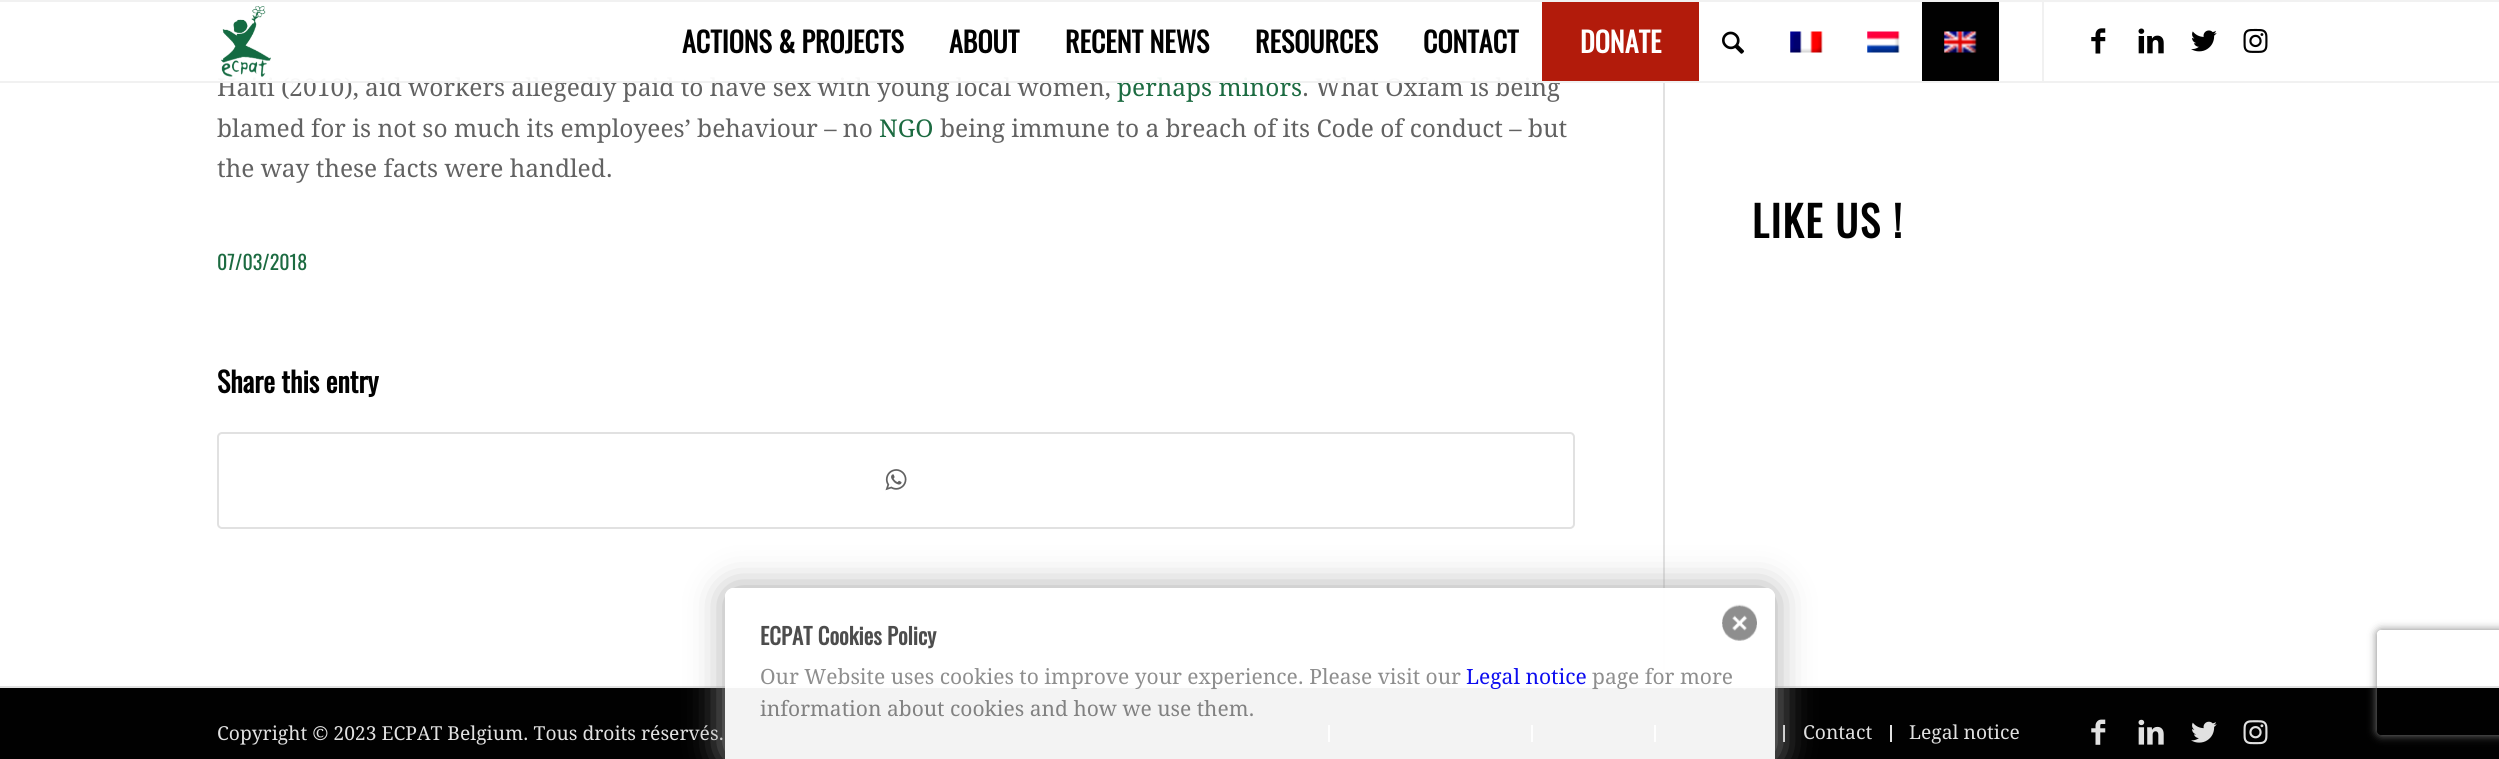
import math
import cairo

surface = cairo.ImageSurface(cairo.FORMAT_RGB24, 2499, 759)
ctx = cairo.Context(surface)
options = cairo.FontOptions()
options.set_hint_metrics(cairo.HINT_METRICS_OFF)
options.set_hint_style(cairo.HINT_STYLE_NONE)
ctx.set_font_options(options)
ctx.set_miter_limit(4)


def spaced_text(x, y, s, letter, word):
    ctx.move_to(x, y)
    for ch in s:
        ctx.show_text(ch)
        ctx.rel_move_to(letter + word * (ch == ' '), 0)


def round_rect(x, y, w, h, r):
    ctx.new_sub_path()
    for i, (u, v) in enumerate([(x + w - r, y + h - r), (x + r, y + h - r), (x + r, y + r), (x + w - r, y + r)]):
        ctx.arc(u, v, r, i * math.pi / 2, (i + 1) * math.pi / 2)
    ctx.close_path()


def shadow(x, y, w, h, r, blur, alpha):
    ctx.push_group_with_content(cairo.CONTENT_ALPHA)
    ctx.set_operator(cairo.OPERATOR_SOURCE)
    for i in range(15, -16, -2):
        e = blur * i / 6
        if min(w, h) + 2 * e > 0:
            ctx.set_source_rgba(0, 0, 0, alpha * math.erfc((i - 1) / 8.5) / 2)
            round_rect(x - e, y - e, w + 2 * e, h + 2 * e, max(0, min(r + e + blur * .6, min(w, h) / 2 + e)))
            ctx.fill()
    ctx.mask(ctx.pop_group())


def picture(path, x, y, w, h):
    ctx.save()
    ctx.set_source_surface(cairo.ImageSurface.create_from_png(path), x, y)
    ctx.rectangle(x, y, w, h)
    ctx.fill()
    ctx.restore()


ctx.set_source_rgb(1, 1, 1)
ctx.paint()
ctx.select_font_face("Droid Serif")
ctx.set_font_size(24.5)
ctx.set_source_rgb(0.384, 0.384, 0.384)
ctx.move_to(217, 96)
ctx.show_text("Haiti (2010), aid workers allegedly paid to have sex with young local women,")
ctx.set_source_rgb(0.11, 0.42, 0.255)
ctx.move_to(1117, 96)
ctx.show_text("perhaps minors")
ctx.set_source_rgb(0.384, 0.384, 0.384)
ctx.move_to(1302, 96)
ctx.show_text(". What Oxfam is being")
ctx.set_source_rgb(0.882, 0.882, 0.882)
ctx.rectangle(1752, 2, 530, 1)
ctx.fill()
ctx.set_source_rgba(1, 1, 1, 0.95)
ctx.rectangle(217, 2, 2065, 79)
ctx.fill()
ctx.set_source_rgb(0.945, 0.945, 0.945)
ctx.rectangle(0, 0, 2499, 2)
ctx.fill()
ctx.rectangle(0, 81, 2499, 2)
ctx.fill()
picture("img1.png", 221, 6, 50, 71)
ctx.rectangle(2042, 2, 2, 79)
ctx.fill()
ctx.select_font_face("Oswald", cairo.FONT_SLANT_NORMAL, cairo.FONT_WEIGHT_BOLD)
ctx.set_font_size(28)
ctx.set_source_rgb(0.004, 0.004, 0.004)
ctx.move_to(682, 53)
ctx.show_text("ACTIONS & PROJECTS")
ctx.move_to(949, 53)
ctx.show_text("ABOUT")
ctx.move_to(1065, 53)
ctx.show_text("RECENT NEWS")
ctx.move_to(1255, 53)
ctx.show_text("RESOURCES")
ctx.move_to(1423, 53)
ctx.show_text("CONTACT")
ctx.set_source_rgb(0.698, 0.106, 0.043)
ctx.rectangle(1542, 2, 157, 79)
ctx.fill()
ctx.set_source_rgb(1, 1, 1)
ctx.move_to(1580, 53)
ctx.show_text("DONATE")
picture("img2.png", 1722, 31, 23, 23)
picture("img3.png", 1790, 31, 33, 22)
picture("img4.png", 1867, 31, 33, 22)
ctx.set_source_rgb(0.004, 0.004, 0.004)
ctx.rectangle(1922, 2, 77, 79)
ctx.fill()
picture("img5.png", 1944, 31, 33, 22)
picture("img6.png", 2091, 28, 15, 26)
picture("img7.png", 2138, 28, 26, 26)
picture("img8.png", 2191, 30, 26, 22)
picture("img9.png", 2243, 28, 25, 25)
ctx.set_source_rgb(0.882, 0.882, 0.882)
ctx.rectangle(1663, 83, 2, 603)
ctx.fill()
ctx.select_font_face("Droid Serif")
ctx.set_font_size(24.5)
ctx.set_source_rgb(0.384, 0.384, 0.384)
ctx.move_to(217, 137)
ctx.show_text("blamed for is not so much its employees’ behaviour – no")
ctx.set_source_rgb(0.11, 0.42, 0.255)
ctx.move_to(879, 137)
ctx.show_text("NGO")
ctx.set_source_rgb(0.384, 0.384, 0.384)
ctx.move_to(940, 137)
ctx.show_text("being immune to a breach of its Code of conduct – but")
ctx.move_to(217, 177)
ctx.show_text("the way these facts were handled.")
ctx.select_font_face("Oswald")
ctx.set_font_size(20)
ctx.set_source_rgb(0.11, 0.42, 0.255)
ctx.move_to(217, 270)
ctx.show_text("07/03/2018")
ctx.select_font_face("Oswald", cairo.FONT_SLANT_NORMAL, cairo.FONT_WEIGHT_BOLD)
ctx.set_font_size(28)
ctx.set_source_rgb(0.004, 0.004, 0.004)
ctx.move_to(217, 393)
ctx.show_text("Share this entry")
round_rect(218, 433, 1356, 95, 4)
ctx.set_source_rgb(0.882, 0.882, 0.882)
ctx.stroke()
picture("img10.png", 885, 469, 22, 22)
ctx.set_font_size(42)
ctx.set_source_rgb(0.004, 0.004, 0.004)
spaced_text(1752, 238, "LIKE US !", 1.75, 0)
ctx.rectangle(0, 688, 2499, 71)
ctx.fill()
ctx.set_source_rgb(0.882, 0.882, 0.882)
ctx.rectangle(0, 686, 2499, 2)
ctx.fill()
ctx.select_font_face("Droid Serif")
ctx.set_font_size(19.25)
ctx.move_to(217, 740)
ctx.show_text("Copyright © 2023 ECPAT Belgium. Tous droits réservés.")
ctx.rectangle(1328, 725, 2, 17)
ctx.fill()
ctx.rectangle(1531, 725, 2, 17)
ctx.fill()
ctx.rectangle(1654, 725, 2, 17)
ctx.fill()
ctx.rectangle(1783, 725, 2, 17)
ctx.fill()
ctx.move_to(1803, 739)
ctx.show_text("Contact")
ctx.rectangle(1890, 725, 2, 17)
ctx.fill()
ctx.move_to(1909, 739)
ctx.show_text("Legal notice")
picture("img11.png", 2091, 719, 15, 26)
picture("img12.png", 2138, 719, 26, 26)
picture("img13.png", 2191, 721, 26, 22)
picture("img14.png", 2243, 720, 25, 25)
ctx.save()
ctx.set_fill_rule(cairo.FILL_RULE_EVEN_ODD)
ctx.new_path()
ctx.move_to(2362, 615)
ctx.line_to(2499, 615)
ctx.line_to(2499, 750)
ctx.line_to(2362, 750)
ctx.close_path()
ctx.move_to(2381, 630)
ctx.line_to(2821, 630)
ctx.curve_to(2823, 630, 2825, 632, 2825, 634)
ctx.line_to(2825, 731)
ctx.curve_to(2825, 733, 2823, 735, 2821, 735)
ctx.line_to(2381, 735)
ctx.curve_to(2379, 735, 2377, 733, 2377, 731)
ctx.line_to(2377, 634)
ctx.curve_to(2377, 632, 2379, 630, 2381, 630)
ctx.close_path()
ctx.clip()
ctx.set_source_rgb(0.502, 0.502, 0.502)
shadow(2377, 630, 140, 105, 4, 4.5, 1)
ctx.restore()
ctx.save()
ctx.set_fill_rule(cairo.FILL_RULE_EVEN_ODD)
ctx.new_path()
ctx.move_to(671, 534)
ctx.line_to(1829, 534)
ctx.line_to(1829, 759)
ctx.line_to(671, 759)
ctx.close_path()
ctx.move_to(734, 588)
ctx.line_to(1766, 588)
ctx.curve_to(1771, 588, 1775, 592, 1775, 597)
ctx.line_to(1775, 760)
ctx.line_to(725, 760)
ctx.line_to(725, 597)
ctx.curve_to(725, 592, 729, 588, 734, 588)
ctx.close_path()
ctx.clip()
ctx.set_source_rgb(0.631, 0.631, 0.631)
shadow(725, 588, 1050, 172, 9, 17.5, 0.95)
ctx.restore()
ctx.set_source_rgba(1, 1, 1, 0.95)
ctx.new_path()
ctx.move_to(734, 588)
ctx.line_to(1766, 588)
ctx.curve_to(1771, 588, 1775, 592, 1775, 597)
ctx.line_to(1775, 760)
ctx.line_to(725, 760)
ctx.line_to(725, 597)
ctx.curve_to(725, 592, 729, 588, 734, 588)
ctx.close_path()
ctx.fill()
ctx.select_font_face("Oswald", cairo.FONT_SLANT_NORMAL, cairo.FONT_WEIGHT_BOLD)
ctx.set_font_size(22.75)
ctx.set_source_rgb(0.302, 0.302, 0.302)
ctx.move_to(760, 645)
ctx.show_text("ECPAT Cookies Policy")
picture("img15.png", 1722, 604, 35, 37)
ctx.select_font_face("Droid Serif")
ctx.set_font_size(21)
ctx.set_source_rgb(0.557, 0.557, 0.557)
ctx.move_to(760, 684)
ctx.show_text("Our Website uses cookies to improve your experience. Please visit our")
ctx.set_source_rgb(0.051, 0.051, 0.937)
ctx.move_to(1466, 684)
ctx.show_text("Legal notice")
ctx.set_source_rgb(0.557, 0.557, 0.557)
ctx.move_to(1592, 684)
ctx.show_text("page for more")
ctx.set_source_rgb(0.506, 0.506, 0.506)
ctx.move_to(760, 716)
ctx.show_text("information about cookies and how we use them.")
surface.write_to_png("page.png")
